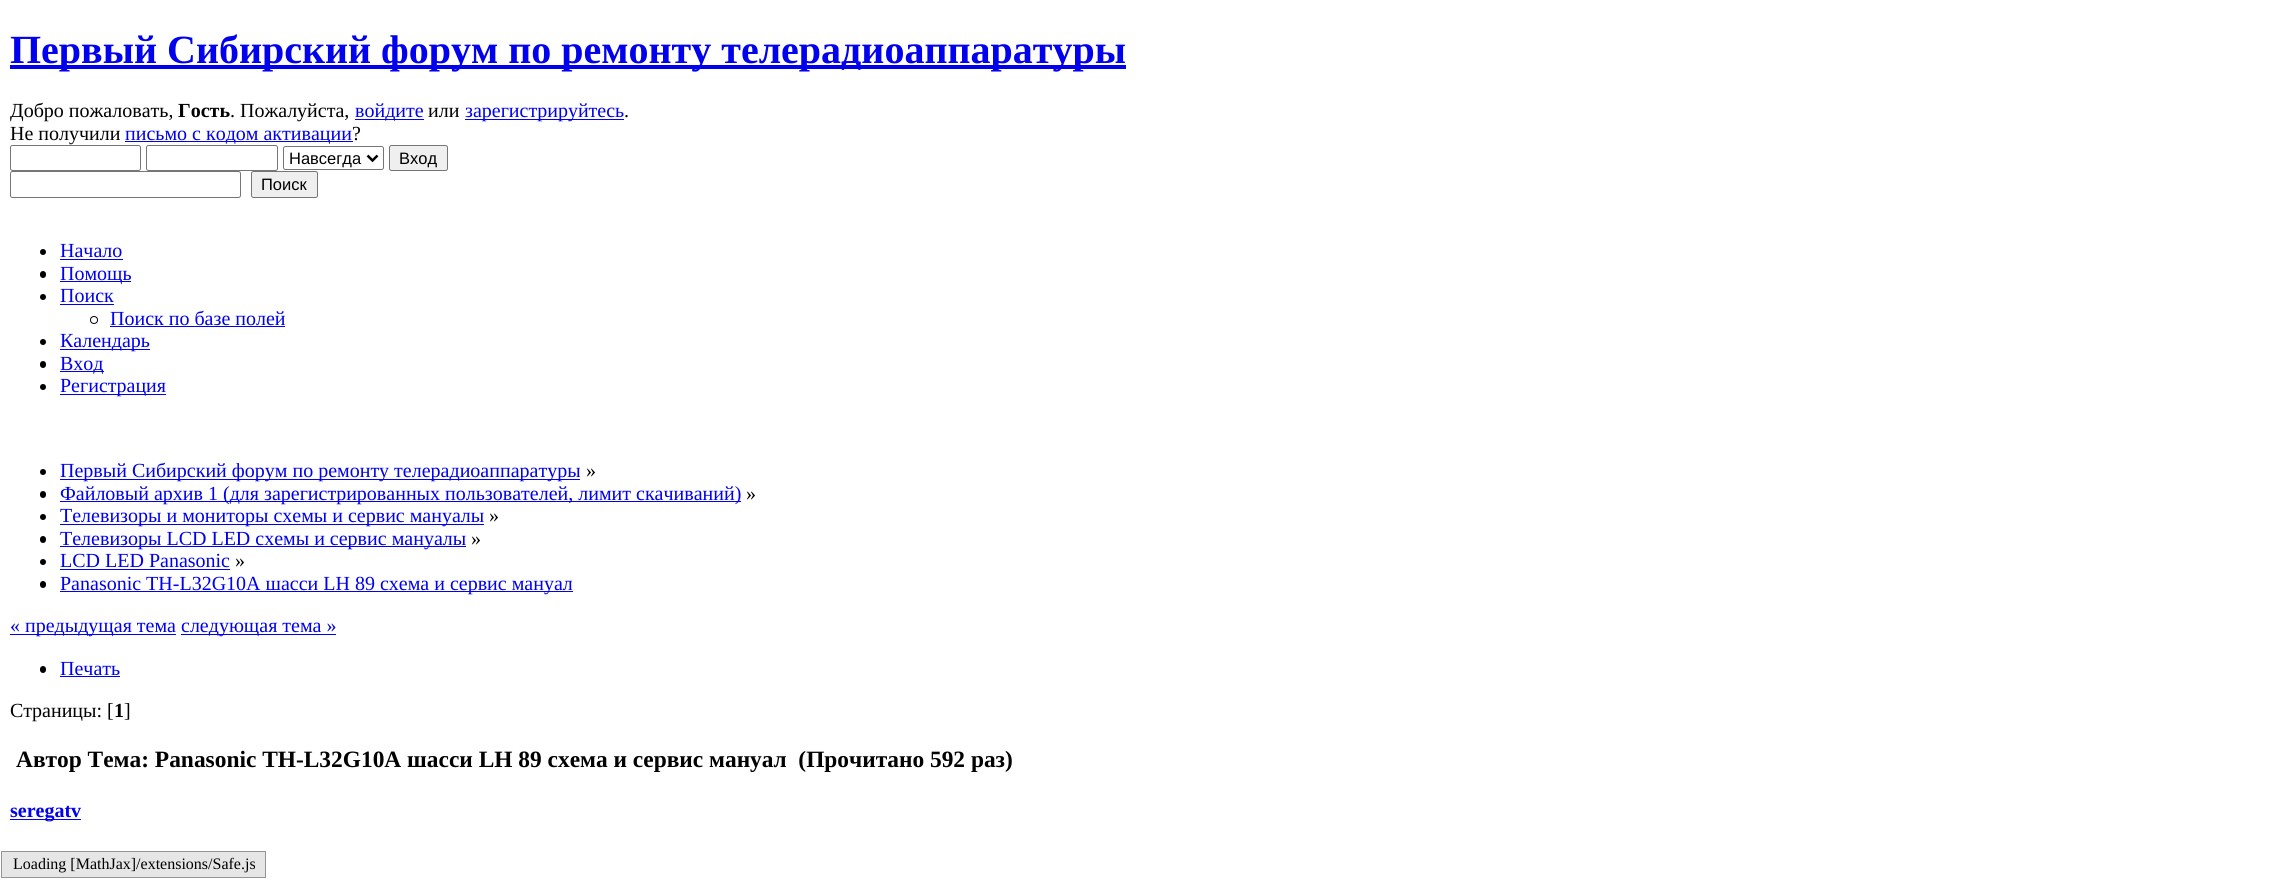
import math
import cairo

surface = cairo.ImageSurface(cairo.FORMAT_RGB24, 2276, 880)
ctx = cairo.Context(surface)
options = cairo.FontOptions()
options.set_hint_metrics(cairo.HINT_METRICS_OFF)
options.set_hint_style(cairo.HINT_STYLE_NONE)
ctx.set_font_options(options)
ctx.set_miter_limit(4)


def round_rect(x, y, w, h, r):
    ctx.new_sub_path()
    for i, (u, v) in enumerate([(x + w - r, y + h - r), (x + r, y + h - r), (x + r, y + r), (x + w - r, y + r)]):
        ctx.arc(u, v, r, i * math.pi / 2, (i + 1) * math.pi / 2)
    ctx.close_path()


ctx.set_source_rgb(1, 1, 1)
ctx.paint()
ctx.set_source_rgb(0, 0, 0.933)
ctx.rectangle(10, 65, 1116, 4)
ctx.fill()
ctx.select_font_face("Liberation Serif", cairo.FONT_SLANT_NORMAL, cairo.FONT_WEIGHT_BOLD)
ctx.set_font_size(40)
ctx.move_to(10, 63)
ctx.show_text("Первый Сибирский форум по ремонту телерадиоаппаратуры")
ctx.select_font_face("Liberation Serif")
ctx.set_font_size(20)
ctx.set_source_rgb(0, 0, 0)
ctx.move_to(10, 117)
ctx.show_text("Добро пожаловать,")
ctx.select_font_face("Liberation Serif", cairo.FONT_SLANT_NORMAL, cairo.FONT_WEIGHT_BOLD)
ctx.move_to(178, 117)
ctx.show_text("Гость")
ctx.select_font_face("Liberation Serif")
ctx.move_to(230, 117)
ctx.show_text(". Пожалуйста,")
ctx.set_source_rgb(0, 0, 0.933)
ctx.rectangle(355, 119, 69, 1)
ctx.fill()
ctx.move_to(355, 117)
ctx.show_text("войдите")
ctx.set_source_rgb(0, 0, 0)
ctx.move_to(428, 117)
ctx.show_text("или")
ctx.set_source_rgb(0, 0, 0.933)
ctx.rectangle(465, 119, 159, 1)
ctx.fill()
ctx.move_to(465, 117)
ctx.show_text("зарегистрируйтесь")
ctx.set_source_rgb(0, 0, 0)
ctx.move_to(624, 117)
ctx.show_text(".")
ctx.move_to(10, 140)
ctx.show_text("Не получили")
ctx.set_source_rgb(0, 0, 0.933)
ctx.rectangle(125, 141, 228, 1)
ctx.fill()
ctx.move_to(125, 140)
ctx.show_text("письмо с кодом активации")
ctx.set_source_rgb(0, 0, 0)
ctx.move_to(352, 140)
ctx.show_text("?")
round_rect(10.5, 145.5, 130, 25, 2)
ctx.set_source_rgb(0.463, 0.463, 0.463)
ctx.set_line_width(1)
ctx.stroke()
round_rect(146.5, 145.5, 131, 25, 2)
ctx.stroke()
round_rect(283.5, 146.5, 100, 23, 2)
ctx.stroke()
ctx.new_path()
ctx.move_to(367.5, 155.5)
ctx.line_to(372.5, 160.5)
ctx.line_to(377.5, 155.5)
ctx.set_source_rgb(0, 0, 0)
ctx.set_line_width(2.5)
ctx.stroke()
ctx.select_font_face("Liberation Sans")
ctx.set_font_size(16.5)
ctx.move_to(289, 164)
ctx.show_text("Навсегда")
ctx.set_source_rgb(0.937, 0.937, 0.937)
round_rect(389.5, 145.5, 58, 25, 2)
ctx.fill_preserve()
ctx.set_source_rgb(0.463, 0.463, 0.463)
ctx.set_line_width(1)
ctx.stroke()
ctx.set_source_rgb(0, 0, 0)
ctx.move_to(399, 164)
ctx.show_text("Вход")
round_rect(10.5, 171.5, 230, 26, 2)
ctx.set_source_rgb(0.463, 0.463, 0.463)
ctx.stroke()
ctx.set_source_rgb(0.937, 0.937, 0.937)
round_rect(251.5, 171.5, 66, 26, 2)
ctx.fill_preserve()
ctx.set_source_rgb(0.463, 0.463, 0.463)
ctx.stroke()
ctx.set_source_rgb(0, 0, 0)
ctx.move_to(261, 190)
ctx.show_text("Поиск")
ctx.new_path()
ctx.arc(43, 252, 3, 0, 2 * math.pi)
ctx.fill()
ctx.select_font_face("Liberation Serif")
ctx.set_font_size(20)
ctx.set_source_rgb(0, 0, 0.933)
ctx.move_to(60, 257)
ctx.show_text("Начало")
ctx.rectangle(60, 259, 63, 1)
ctx.fill()
ctx.set_source_rgb(0, 0, 0)
round_rect(40, 271, 6, 7, 3)
ctx.fill()
ctx.set_source_rgb(0, 0, 0.933)
ctx.rectangle(60, 281, 71, 1)
ctx.fill()
ctx.move_to(60, 280)
ctx.show_text("Помощь")
ctx.set_source_rgb(0, 0, 0)
ctx.new_path()
ctx.arc(43, 297, 3, 0, 2 * math.pi)
ctx.fill()
ctx.set_source_rgb(0, 0, 0.933)
ctx.move_to(60, 302)
ctx.show_text("Поиск")
ctx.rectangle(60, 304, 54, 1)
ctx.fill()
ctx.arc(94, 320, 3.5, 0, 2 * math.pi)
ctx.set_source_rgb(0, 0, 0)
ctx.stroke()
ctx.set_source_rgb(0, 0, 0.933)
ctx.move_to(110, 325)
ctx.show_text("Поиск по базе полей")
ctx.rectangle(110, 326, 175, 1)
ctx.fill()
ctx.set_source_rgb(0, 0, 0)
ctx.arc(43, 342, 3, 0, 2 * math.pi)
ctx.fill()
ctx.set_source_rgb(0, 0, 0.933)
ctx.rectangle(60, 349, 90, 1)
ctx.fill()
ctx.move_to(60, 347)
ctx.show_text("Календарь")
ctx.set_source_rgb(0, 0, 0)
round_rect(40, 361, 6, 7, 3)
ctx.fill()
ctx.set_source_rgb(0, 0, 0.933)
ctx.rectangle(60, 371, 44, 1)
ctx.fill()
ctx.move_to(60, 370)
ctx.show_text("Вход")
ctx.set_source_rgb(0, 0, 0)
ctx.new_path()
ctx.arc(43, 387, 3, 0, 2 * math.pi)
ctx.fill()
ctx.set_source_rgb(0, 0, 0.933)
ctx.rectangle(60, 394, 106, 1)
ctx.fill()
ctx.move_to(60, 392)
ctx.show_text("Регистрация")
ctx.set_source_rgb(0, 0, 0)
ctx.new_path()
ctx.arc(43, 472, 3, 0, 2 * math.pi)
ctx.fill()
ctx.set_source_rgb(0, 0, 0.933)
ctx.rectangle(60, 479, 520, 1)
ctx.fill()
ctx.move_to(60, 477)
ctx.show_text("Первый Сибирский форум по ремонту телерадиоаппаратуры")
ctx.set_source_rgb(0, 0, 0)
ctx.move_to(586, 477)
ctx.show_text("»")
round_rect(40, 491, 6, 7, 3)
ctx.fill()
ctx.set_source_rgb(0, 0, 0.933)
ctx.rectangle(60, 501, 681, 1)
ctx.fill()
ctx.move_to(60, 500)
ctx.show_text("Файловый архив 1 (для зарегистрированных пользователей, лимит скачиваний)")
ctx.set_source_rgb(0, 0, 0)
ctx.move_to(746, 500)
ctx.show_text("»")
ctx.new_path()
ctx.arc(43, 517, 3, 0, 2 * math.pi)
ctx.fill()
ctx.set_source_rgb(0, 0, 0.933)
ctx.rectangle(60, 524, 424, 1)
ctx.fill()
ctx.move_to(60, 522)
ctx.show_text("Телевизоры и мониторы схемы и сервис мануалы")
ctx.set_source_rgb(0, 0, 0)
ctx.move_to(489, 522)
ctx.show_text("»")
round_rect(40, 536, 6, 7, 3)
ctx.fill()
ctx.set_source_rgb(0, 0, 0.933)
ctx.rectangle(60, 546, 406, 1)
ctx.fill()
ctx.move_to(60, 545)
ctx.show_text("Телевизоры LCD LED схемы и сервис мануалы")
ctx.set_source_rgb(0, 0, 0)
ctx.move_to(471, 545)
ctx.show_text("»")
ctx.new_path()
ctx.arc(43, 562, 3, 0, 2 * math.pi)
ctx.fill()
ctx.set_source_rgb(0, 0, 0.933)
ctx.move_to(60, 567)
ctx.show_text("LCD LED Panasonic")
ctx.rectangle(60, 569, 170, 1)
ctx.fill()
ctx.set_source_rgb(0, 0, 0)
ctx.move_to(235, 567)
ctx.show_text("»")
round_rect(40, 581, 6, 7, 3)
ctx.fill()
ctx.set_source_rgb(0, 0, 0.933)
ctx.rectangle(60, 591, 513, 1)
ctx.fill()
ctx.move_to(60, 590)
ctx.show_text("Panasonic TH-L32G10A шасси LH 89 схема и сервис мануал")
ctx.rectangle(10, 634, 166, 1)
ctx.fill()
ctx.move_to(10, 632)
ctx.show_text("« предыдущая тема")
ctx.rectangle(181, 634, 155, 1)
ctx.fill()
ctx.move_to(181, 632)
ctx.show_text("следующая тема »")
ctx.set_source_rgb(0, 0, 0)
round_rect(40, 666, 6, 7, 3)
ctx.fill()
ctx.set_source_rgb(0, 0, 0.933)
ctx.move_to(60, 675)
ctx.show_text("Печать")
ctx.rectangle(60, 676, 60, 1)
ctx.fill()
ctx.set_source_rgb(0, 0, 0)
ctx.move_to(10, 717)
ctx.show_text("Страницы: [")
ctx.select_font_face("Liberation Serif", cairo.FONT_SLANT_NORMAL, cairo.FONT_WEIGHT_BOLD)
ctx.move_to(114, 717)
ctx.show_text("1")
ctx.select_font_face("Liberation Serif")
ctx.move_to(124, 717)
ctx.show_text("]")
ctx.select_font_face("Liberation Serif", cairo.FONT_SLANT_NORMAL, cairo.FONT_WEIGHT_BOLD)
ctx.set_font_size(23.4)
ctx.move_to(16, 767)
ctx.show_text("Автор Тема: Panasonic TH-L32G10A шасси LH 89 схема и сервис мануал  (Прочитано 592 раз)")
ctx.set_source_rgb(0, 0, 0.933)
ctx.rectangle(10, 819, 71, 1)
ctx.fill()
ctx.set_font_size(20)
ctx.move_to(10, 817)
ctx.show_text("seregatv")
ctx.set_source_rgb(0.902, 0.902, 0.902)
ctx.rectangle(1.5, 851.5, 264, 26)
ctx.fill_preserve()
ctx.set_source_rgb(0.584, 0.584, 0.584)
ctx.stroke()
ctx.select_font_face("Liberation Serif")
ctx.set_font_size(16)
ctx.set_source_rgb(0, 0, 0)
ctx.move_to(13, 869)
ctx.show_text("Loading [MathJax]/extensions/Safe.js")
surface.write_to_png("page.png")
